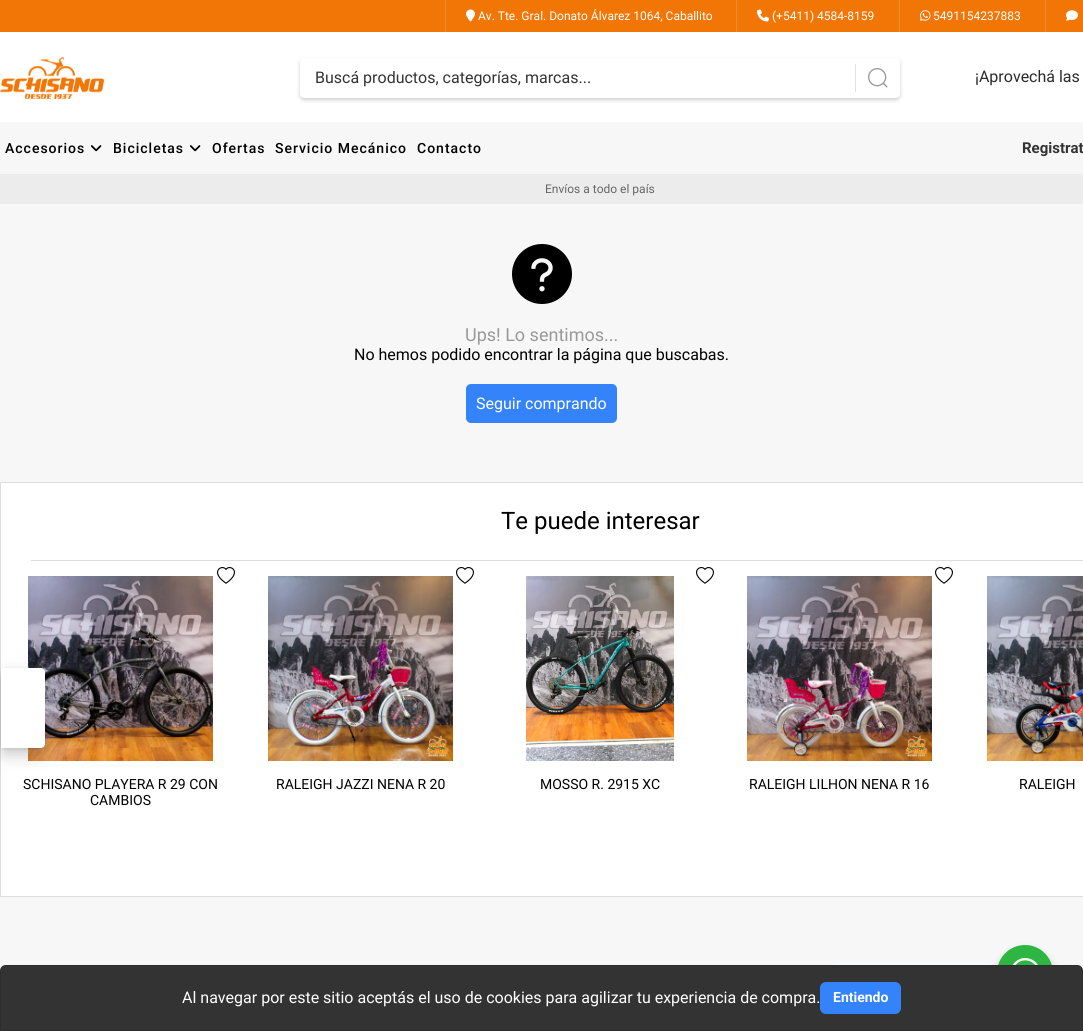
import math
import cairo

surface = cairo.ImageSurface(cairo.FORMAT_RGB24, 1083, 1031)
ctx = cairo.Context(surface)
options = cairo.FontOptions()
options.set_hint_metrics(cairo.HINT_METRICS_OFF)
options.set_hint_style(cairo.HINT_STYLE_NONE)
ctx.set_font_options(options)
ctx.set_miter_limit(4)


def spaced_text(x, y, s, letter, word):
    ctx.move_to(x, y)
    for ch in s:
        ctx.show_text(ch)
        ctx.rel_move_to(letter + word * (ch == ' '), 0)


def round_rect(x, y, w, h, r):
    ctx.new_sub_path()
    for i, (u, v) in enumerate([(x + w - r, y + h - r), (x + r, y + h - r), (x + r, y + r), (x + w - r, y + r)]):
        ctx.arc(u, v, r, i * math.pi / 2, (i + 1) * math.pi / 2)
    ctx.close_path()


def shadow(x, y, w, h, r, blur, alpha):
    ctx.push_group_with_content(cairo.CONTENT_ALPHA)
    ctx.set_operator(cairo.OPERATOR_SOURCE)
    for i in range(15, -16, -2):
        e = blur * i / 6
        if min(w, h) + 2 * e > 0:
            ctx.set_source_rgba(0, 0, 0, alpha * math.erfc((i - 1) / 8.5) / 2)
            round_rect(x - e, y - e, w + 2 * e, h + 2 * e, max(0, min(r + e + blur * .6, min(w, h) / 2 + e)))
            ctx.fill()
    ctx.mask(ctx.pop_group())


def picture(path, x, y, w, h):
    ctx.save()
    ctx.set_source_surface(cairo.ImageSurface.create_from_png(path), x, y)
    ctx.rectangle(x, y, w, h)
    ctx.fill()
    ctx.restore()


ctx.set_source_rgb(0.965, 0.965, 0.965)
ctx.paint()
ctx.set_source_rgb(1, 1, 1)
ctx.rectangle(0, 32, 1083, 90)
ctx.fill()
ctx.set_source_rgb(0.949, 0.463, 0.024)
ctx.rectangle(0, 0, 1083, 32)
ctx.fill()
ctx.set_source_rgb(0.937, 0.545, 0.22)
ctx.rectangle(445, 0, 1, 32)
ctx.fill()
picture("img1.png", 466, 9, 9, 13)
ctx.select_font_face("Roboto")
ctx.set_font_size(12)
ctx.set_source_rgb(1, 1, 1)
ctx.move_to(478, 20)
ctx.show_text("Av. Tte. Gral. Donato Álvarez 1064, Caballito")
ctx.set_source_rgb(0.937, 0.545, 0.22)
ctx.rectangle(736, 0, 1, 32)
ctx.fill()
picture("img2.png", 757, 9, 12, 13)
ctx.set_source_rgb(1, 1, 1)
ctx.move_to(772, 20)
ctx.show_text("(+5411) 4584-8159")
ctx.set_source_rgb(0.937, 0.545, 0.22)
ctx.rectangle(899, 0, 1, 32)
ctx.fill()
picture("img3.png", 920, 10, 11, 11)
ctx.set_source_rgb(1, 1, 1)
ctx.move_to(933, 20)
ctx.show_text("5491154237883")
ctx.set_source_rgb(0.937, 0.545, 0.22)
ctx.rectangle(1045, 0, 1, 32)
ctx.fill()
picture("img4.png", 1066, 10, 12, 11)
picture("img5.png", 0, 56, 104, 43)
ctx.set_source_rgb(0, 0, 0)
shadow(300, 60, 600, 40, 4, 2, 0.2)
ctx.set_source_rgb(1, 1, 1)
round_rect(300, 58, 600, 40, 4)
ctx.fill()
ctx.set_font_size(16)
ctx.set_source_rgb(0.2, 0.2, 0.2)
ctx.move_to(315, 83)
ctx.show_text("Buscá productos, categorías, marcas...")
ctx.set_source_rgb(0.886, 0.886, 0.886)
ctx.rectangle(855, 64, 1, 28)
ctx.fill()
picture("img6.png", 868, 68, 20, 20)
ctx.set_source_rgb(0.169, 0.169, 0.169)
ctx.move_to(975, 82)
ctx.show_text("¡Aprovechá las")
ctx.select_font_face("Roboto Medium")
ctx.set_font_size(14)
ctx.set_source_rgb(0, 0, 0)
spaced_text(5, 153, "Accesorios", 1, 0)
picture("img7.png", 91, 145, 11, 7)
spaced_text(113, 153, "Bicicletas", 1, 0)
picture("img7.png", 190, 145, 11, 7)
spaced_text(212, 153, "Ofertas", 1, 0)
spaced_text(275, 153, "Servicio Mecánico", 1, 0)
spaced_text(417, 153, "Contacto", 1, 0)
ctx.select_font_face("Roboto", cairo.FONT_SLANT_NORMAL, cairo.FONT_WEIGHT_BOLD)
ctx.set_font_size(15)
ctx.set_source_rgb(0.2, 0.2, 0.2)
ctx.move_to(1022, 153)
ctx.show_text("Registrat")
ctx.set_source_rgb(0.922, 0.922, 0.922)
ctx.rectangle(0, 174, 1083, 30)
ctx.fill()
ctx.select_font_face("Roboto")
ctx.set_font_size(12)
ctx.set_source_rgb(0.4, 0.4, 0.4)
ctx.move_to(545, 193)
ctx.show_text("Envíos a todo el país")
picture("img8.png", 512, 244, 60, 60)
ctx.set_font_size(18)
ctx.set_source_rgb(0.6, 0.6, 0.6)
ctx.move_to(465, 341)
ctx.show_text("Ups! Lo sentimos...")
ctx.set_font_size(16)
ctx.set_source_rgb(0, 0, 0)
ctx.move_to(354, 360)
ctx.show_text("No hemos podido encontrar la página que buscabas.")
ctx.set_source_rgb(0.204, 0.514, 0.98)
round_rect(466, 384, 151, 39, 5)
ctx.fill()
ctx.set_source_rgb(1, 1, 1)
ctx.move_to(476, 409)
ctx.show_text("Seguir comprando")
ctx.rectangle(0.5, 482.5, 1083, 414)
ctx.fill_preserve()
ctx.set_source_rgb(0.867, 0.867, 0.867)
ctx.set_line_width(1)
ctx.stroke()
ctx.rectangle(31, 560, 1052, 1)
ctx.fill()
ctx.set_font_size(24)
ctx.set_source_rgb(0, 0, 0)
ctx.move_to(501, 529)
ctx.show_text("Te puede interesar")
picture("img9.png", 28, 576, 185, 185)
ctx.set_source_rgb(0, 0, 0)
shadow(1, 669, 44, 80, 4, 1.5, 0.1)
shadow(1, 675, 44, 80, 4, 8, 0.2)
ctx.set_source_rgb(1, 1, 1)
ctx.new_path()
ctx.move_to(1, 668)
ctx.line_to(41, 668)
ctx.curve_to(43, 668, 45, 670, 45, 672)
ctx.line_to(45, 744)
ctx.curve_to(45, 746, 43, 748, 41, 748)
ctx.line_to(1, 748)
ctx.close_path()
ctx.fill()
picture("img10.png", 217, 567, 18, 17)
ctx.set_font_size(14)
ctx.set_source_rgb(0, 0, 0)
ctx.move_to(23, 789)
ctx.show_text("SCHISANO PLAYERA R 29 CON")
ctx.move_to(90, 805)
ctx.show_text("CAMBIOS")
picture("img11.png", 268, 576, 185, 185)
picture("img10.png", 456, 567, 18, 17)
ctx.move_to(276, 789)
ctx.show_text("RALEIGH JAZZI NENA R 20")
picture("img12.png", 526, 576, 148, 185)
picture("img10.png", 696, 567, 18, 17)
ctx.move_to(540, 789)
ctx.show_text("MOSSO R. 2915 XC")
picture("img13.png", 747, 576, 185, 185)
picture("img10.png", 935, 567, 18, 17)
ctx.move_to(749, 789)
ctx.show_text("RALEIGH LILHON NENA R 16")
picture("img14.png", 987, 576, 96, 185)
ctx.move_to(1019, 789)
ctx.show_text("RALEIGH")
ctx.set_source_rgb(0, 0, 0)
shadow(995, 949, 60, 60, 30, 4, 0.14)
ctx.set_source_rgb(0.961, 0.969, 0.976)
round_rect(834, 960, 156, 42, 4)
ctx.fill()
ctx.set_source_rgb(0.176, 0.718, 0.259)
ctx.arc(1025, 973, 28, 0, 2 * math.pi)
ctx.fill()
ctx.set_source_rgb(0.2, 0.2, 0.2)
ctx.new_path()
ctx.move_to(6, 965)
ctx.line_to(1077, 965)
ctx.curve_to(1080.5, 965, 1083, 967.5, 1083, 971)
ctx.line_to(1083, 1031)
ctx.line_to(0, 1031)
ctx.line_to(0, 971)
ctx.curve_to(0, 967.5, 2.5, 965, 6, 965)
ctx.close_path()
ctx.fill()
ctx.new_path()
ctx.move_to(6, 965.5)
ctx.line_to(1077, 965.5)
ctx.curve_to(1080, 965.5, 1082.5, 968, 1082.5, 971)
ctx.line_to(1082.5, 1030.5)
ctx.line_to(0.5, 1030.5)
ctx.line_to(0.5, 971)
ctx.curve_to(0.5, 968, 3, 965.5, 6, 965.5)
ctx.close_path()
ctx.set_source_rgba(0, 0, 0, 0.12)
ctx.stroke()
ctx.set_font_size(16)
ctx.set_source_rgb(1, 1, 1)
ctx.move_to(182, 1003)
ctx.show_text("Al navegar por este sitio aceptás el uso de cookies para agilizar tu experiencia de compra.")
ctx.set_source_rgb(0.204, 0.514, 0.98)
round_rect(820.5, 982.5, 80, 31, 5.5)
ctx.fill_preserve()
ctx.stroke()
ctx.select_font_face("Roboto", cairo.FONT_SLANT_NORMAL, cairo.FONT_WEIGHT_BOLD)
ctx.set_font_size(14)
ctx.set_source_rgb(1, 1, 1)
ctx.move_to(833, 1002)
ctx.show_text("Entiendo")
picture("img15.png", 1012, 958, 26, 7)
surface.write_to_png("page.png")
